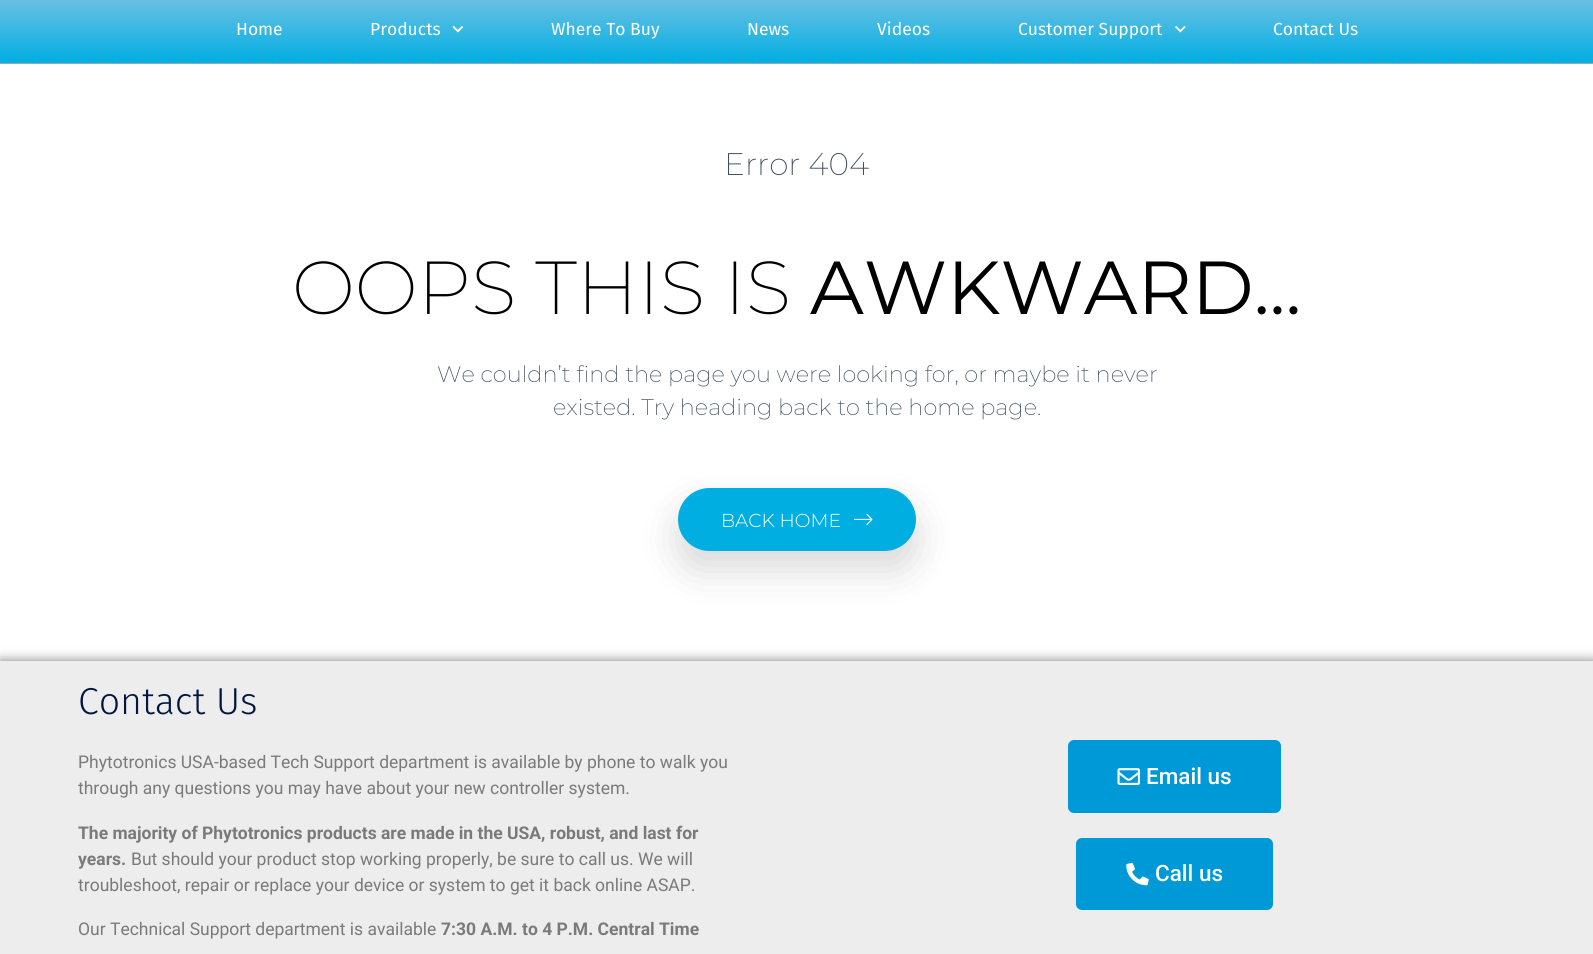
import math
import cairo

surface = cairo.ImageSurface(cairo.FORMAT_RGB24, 1593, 954)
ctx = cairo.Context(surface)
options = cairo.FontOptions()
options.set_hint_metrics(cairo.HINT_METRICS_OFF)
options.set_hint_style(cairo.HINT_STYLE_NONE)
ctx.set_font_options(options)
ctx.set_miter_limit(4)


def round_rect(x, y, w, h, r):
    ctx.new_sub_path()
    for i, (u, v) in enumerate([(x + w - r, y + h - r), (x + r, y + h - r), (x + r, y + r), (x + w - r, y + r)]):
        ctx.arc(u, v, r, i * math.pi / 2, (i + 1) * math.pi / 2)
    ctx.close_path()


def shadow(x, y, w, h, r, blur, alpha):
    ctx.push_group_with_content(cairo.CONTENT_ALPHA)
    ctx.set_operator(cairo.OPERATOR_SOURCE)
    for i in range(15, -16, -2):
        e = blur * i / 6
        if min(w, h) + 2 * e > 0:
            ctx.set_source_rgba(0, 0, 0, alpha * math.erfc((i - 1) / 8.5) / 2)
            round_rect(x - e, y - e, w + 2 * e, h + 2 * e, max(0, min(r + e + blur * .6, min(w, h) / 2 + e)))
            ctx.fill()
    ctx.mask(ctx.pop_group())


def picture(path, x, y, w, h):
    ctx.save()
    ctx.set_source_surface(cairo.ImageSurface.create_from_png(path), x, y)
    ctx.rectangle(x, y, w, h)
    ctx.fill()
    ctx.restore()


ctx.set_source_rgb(1, 1, 1)
ctx.paint()
gradient = cairo.LinearGradient(797, -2.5, 797, 63)
gradient.add_color_stop_rgba(0, 0.431, 0.757, 0.894, 1)
gradient.add_color_stop_rgba(1, 0, 0.682, 0.886, 1)
ctx.set_source(gradient)
ctx.rectangle(0, 0, 1593, 63)
ctx.fill()
gradient = cairo.LinearGradient(797, 62, 797, 128)
gradient.add_color_stop_rgba(0, 0.431, 0.757, 0.894, 1)
gradient.add_color_stop_rgba(1, 0, 0.682, 0.886, 1)
ctx.set_source(gradient)
ctx.rectangle(0, 63, 1593, 1)
ctx.fill()
ctx.new_path()
ctx.move_to(0, 63)
ctx.line_to(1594, 63)
ctx.set_source_rgb(0.557, 0.557, 0.557)
ctx.set_line_width(1.2)
ctx.set_dash([1.25, 1.25])
ctx.stroke()
ctx.select_font_face("Fira Sans")
ctx.set_font_size(17.5)
ctx.set_source_rgb(1, 1, 1)
ctx.move_to(236, 35)
ctx.show_text("Home")
ctx.move_to(370, 35)
ctx.show_text("Products")
picture("img1.png", 452, 26, 11, 7)
ctx.move_to(551, 35)
ctx.show_text("Where To Buy")
ctx.move_to(747, 35)
ctx.show_text("News")
ctx.move_to(877, 35)
ctx.show_text("Videos")
ctx.move_to(1018, 35)
ctx.show_text("Customer Support")
picture("img2.png", 1175, 26, 11, 7)
ctx.move_to(1273, 35)
ctx.show_text("Contact Us")
ctx.select_font_face("Montserrat ExtraLight")
ctx.set_font_size(31.25)
ctx.set_source_rgb(0.239, 0.306, 0.376)
ctx.move_to(724, 175)
ctx.show_text("Error 404")
ctx.set_font_size(75)
ctx.set_source_rgb(0, 0, 0)
ctx.move_to(292, 314)
ctx.show_text("OOPS THIS IS")
ctx.select_font_face("Montserrat")
ctx.move_to(810, 314)
ctx.show_text("AWKWARD...")
ctx.select_font_face("Montserrat ExtraLight")
ctx.set_font_size(22.5)
ctx.set_source_rgb(0.239, 0.306, 0.376)
ctx.move_to(437, 382)
ctx.show_text("We couldn’t find the page you were looking for, or maybe it never")
ctx.move_to(553, 415)
ctx.show_text("existed. Try heading back to the home page.")
ctx.set_source_rgb(0, 0, 0)
shadow(678, 506, 238, 64, 32, 19, 0.15)
ctx.set_source_rgb(0, 0.682, 0.886)
round_rect(678, 488, 238, 63, 31.5)
ctx.fill()
ctx.select_font_face("Montserrat Light")
ctx.set_font_size(18.75)
ctx.set_source_rgb(1, 1, 1)
ctx.move_to(721, 527)
ctx.show_text("BACK HOME")
picture("img3.png", 854, 514, 19, 11)
ctx.set_source_rgb(0, 0, 0)
shadow(0, 661, 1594, 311, 0, 6, 0.5)
ctx.set_source_rgb(0.929, 0.929, 0.929)
ctx.rectangle(0, 661, 1593, 293)
ctx.fill()
ctx.select_font_face("Fira Sans Light")
ctx.set_font_size(37.5)
ctx.set_source_rgb(0.004, 0.086, 0.251)
ctx.move_to(78, 714)
ctx.show_text("Contact Us")
ctx.select_font_face("Roboto")
ctx.set_font_size(17.5)
ctx.set_source_rgb(0.478, 0.478, 0.478)
ctx.move_to(78, 768)
ctx.show_text("Phytotronics USA-based Tech Support department is available by phone to walk you")
ctx.move_to(78, 794)
ctx.show_text("through any questions you may have about your new controller system.")
ctx.select_font_face("Roboto", cairo.FONT_SLANT_NORMAL, cairo.FONT_WEIGHT_BOLD)
ctx.move_to(78, 839)
ctx.show_text("The majority of Phytotronics products are made in the USA, robust, and last for")
ctx.move_to(78, 865)
ctx.show_text("years.")
ctx.select_font_face("Roboto")
ctx.move_to(131, 865)
ctx.show_text("But should your product stop working properly, be sure to call us. We will")
ctx.move_to(78, 891)
ctx.show_text("troubleshoot, repair or replace your device or system to get it back online ASAP.")
ctx.move_to(78, 935)
ctx.show_text("Our Technical Support department is available")
ctx.select_font_face("Roboto", cairo.FONT_SLANT_NORMAL, cairo.FONT_WEIGHT_BOLD)
ctx.move_to(441, 935)
ctx.show_text("7:30 A.M. to 4 P.M. Central Time")
ctx.set_source_rgb(0, 0.6, 0.847)
round_rect(1068, 740, 213, 73, 6)
ctx.fill()
picture("img4.png", 1117, 768, 23, 17)
ctx.select_font_face("Roboto Medium")
ctx.set_font_size(22.5)
ctx.set_source_rgb(1, 1, 1)
ctx.move_to(1146, 784)
ctx.show_text("Email us")
ctx.set_source_rgb(0, 0.6, 0.847)
round_rect(1076, 838, 197, 72, 6)
ctx.fill()
picture("img5.png", 1126, 862, 23, 24)
ctx.set_source_rgb(1, 1, 1)
ctx.move_to(1155, 881)
ctx.show_text("Call us")
surface.write_to_png("page.png")
